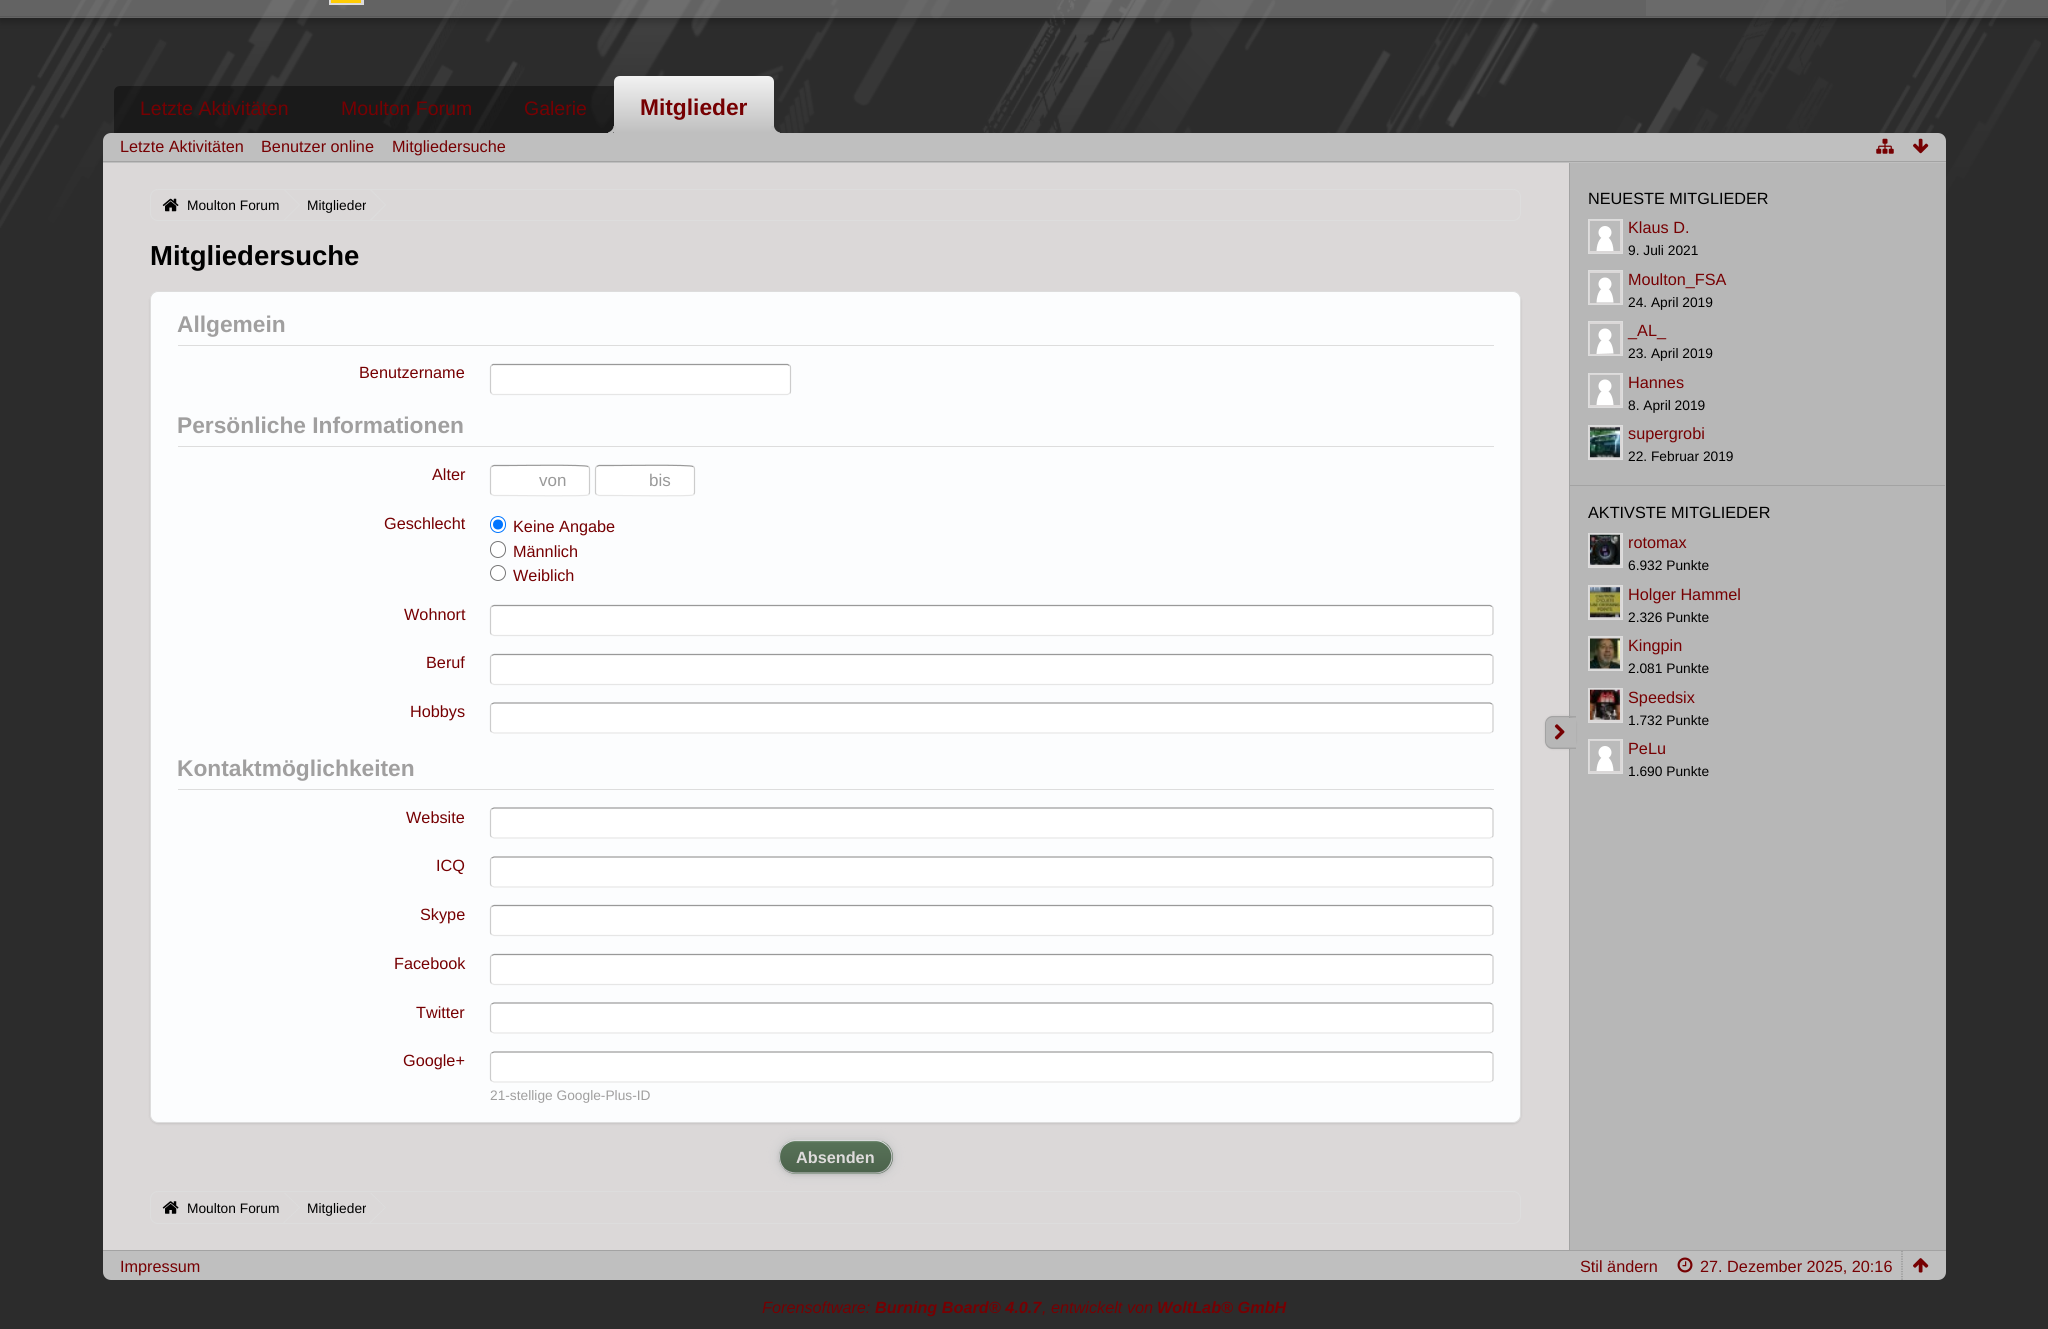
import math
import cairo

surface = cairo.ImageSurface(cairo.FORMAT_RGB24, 2048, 1329)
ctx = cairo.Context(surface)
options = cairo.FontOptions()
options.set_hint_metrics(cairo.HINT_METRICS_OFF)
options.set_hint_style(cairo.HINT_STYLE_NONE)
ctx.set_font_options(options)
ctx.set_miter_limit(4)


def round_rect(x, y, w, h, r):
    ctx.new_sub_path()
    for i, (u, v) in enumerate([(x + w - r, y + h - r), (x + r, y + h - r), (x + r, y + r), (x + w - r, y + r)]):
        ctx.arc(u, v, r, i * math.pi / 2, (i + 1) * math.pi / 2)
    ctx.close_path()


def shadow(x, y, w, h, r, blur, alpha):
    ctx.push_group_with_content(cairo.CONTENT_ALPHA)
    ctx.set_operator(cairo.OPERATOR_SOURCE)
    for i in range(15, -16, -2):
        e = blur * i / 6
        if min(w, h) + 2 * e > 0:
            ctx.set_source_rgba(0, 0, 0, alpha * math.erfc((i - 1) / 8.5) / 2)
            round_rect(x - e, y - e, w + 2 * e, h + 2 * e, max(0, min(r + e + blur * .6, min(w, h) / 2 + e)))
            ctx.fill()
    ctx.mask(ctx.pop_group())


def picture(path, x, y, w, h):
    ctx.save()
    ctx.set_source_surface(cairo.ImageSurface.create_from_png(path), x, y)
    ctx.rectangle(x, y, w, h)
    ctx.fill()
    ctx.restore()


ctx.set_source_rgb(0.173, 0.173, 0.173)
ctx.paint()
picture("img1.png", 0, 0, 2041, 228)
ctx.save()
ctx.set_fill_rule(cairo.FILL_RULE_EVEN_ODD)
ctx.new_path()
ctx.move_to(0, 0)
ctx.line_to(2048, 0)
ctx.line_to(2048, 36)
ctx.line_to(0, 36)
ctx.close_path()
ctx.move_to(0, -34)
ctx.line_to(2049, -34)
ctx.line_to(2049, 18)
ctx.line_to(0, 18)
ctx.close_path()
ctx.clip()
ctx.set_source_rgb(0, 0, 0)
shadow(0, -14, 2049, 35, 0, 4.5, 0.3)
ctx.restore()
ctx.set_source_rgba(0.608, 0.604, 0.604, 0.5)
ctx.rectangle(0, 0, 2048, 18)
ctx.fill()
ctx.set_source_rgba(0, 0, 0, 0.1)
ctx.rectangle(0, 16, 2048, 1)
ctx.fill()
ctx.set_source_rgb(0.859, 0.847, 0.847)
ctx.rectangle(329.5, -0.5, 34, 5)
ctx.fill_preserve()
ctx.set_source_rgb(0.867, 0.867, 0.867)
ctx.set_line_width(1)
ctx.stroke()
ctx.set_source_rgb(1, 0.8, 0.016)
ctx.rectangle(331, 0, 30, 3)
ctx.fill()
ctx.set_source_rgba(0.459, 0.459, 0.459, 0.4)
ctx.rectangle(1646, 0, 300, 16)
ctx.fill()
picture("img2.png", 102, 48, 2, 2)
ctx.set_source_rgba(0, 0, 0, 0.4)
ctx.new_path()
ctx.move_to(120, 86)
ctx.line_to(768, 86)
ctx.curve_to(771.5, 86, 774, 88.5, 774, 92)
ctx.line_to(774, 133)
ctx.line_to(114, 133)
ctx.line_to(114, 92)
ctx.curve_to(114, 88.5, 116.5, 86, 120, 86)
ctx.close_path()
ctx.fill()
ctx.select_font_face("Liberation Sans")
ctx.set_font_size(19.5)
ctx.set_source_rgb(0.463, 0, 0.008)
ctx.move_to(140, 115)
ctx.show_text("Letzte Aktivitäten")
ctx.move_to(341, 115)
ctx.show_text("Moulton Forum")
ctx.move_to(524, 115)
ctx.show_text("Galerie")
gradient = cairo.LinearGradient(694, 76, 694, 133)
gradient.add_color_stop_rgba(0, 0.949, 0.949, 0.949, 1)
gradient.add_color_stop_rgba(1, 0.749, 0.749, 0.749, 1)
ctx.set_source(gradient)
ctx.new_path()
ctx.move_to(620, 76)
ctx.line_to(768, 76)
ctx.curve_to(771.5, 76, 774, 78.5, 774, 82)
ctx.line_to(774, 133)
ctx.line_to(614, 133)
ctx.line_to(614, 82)
ctx.curve_to(614, 78.5, 616.5, 76, 620, 76)
ctx.close_path()
ctx.fill()
ctx.select_font_face("Liberation Sans", cairo.FONT_SLANT_NORMAL, cairo.FONT_WEIGHT_BOLD)
ctx.set_font_size(22.75)
ctx.set_source_rgb(0.463, 0, 0.008)
ctx.move_to(640, 115)
ctx.show_text("Mitglieder")
ctx.set_source_rgb(0.749, 0.749, 0.749)
ctx.new_path()
ctx.move_to(111, 133)
ctx.line_to(1938, 133)
ctx.curve_to(1942.5, 133, 1946, 136.5, 1946, 141)
ctx.line_to(1946, 163)
ctx.line_to(103, 163)
ctx.line_to(103, 141)
ctx.curve_to(103, 136.5, 106.5, 133, 111, 133)
ctx.close_path()
ctx.fill()
ctx.new_path()
ctx.move_to(608, 132.5)
ctx.line_to(608, 135)
ctx.curve_to(613, 135, 616, 130.5, 616, 126)
ctx.line_to(613.5, 126)
ctx.curve_to(613.5, 129, 611, 131.5, 608, 132.5)
ctx.close_path()
ctx.fill()
ctx.new_path()
ctx.move_to(771, 126)
ctx.curve_to(771, 131.5, 774.5, 135, 780, 135)
ctx.line_to(780, 132.5)
ctx.curve_to(777, 132, 774.5, 129.5, 774, 126)
ctx.close_path()
ctx.fill()
ctx.set_source_rgb(0.639, 0.639, 0.639)
ctx.rectangle(103, 161, 1843, 1)
ctx.fill()
ctx.select_font_face("Liberation Sans")
ctx.set_font_size(16.25)
ctx.set_source_rgb(0.463, 0, 0.008)
ctx.move_to(120, 152)
ctx.show_text("Letzte Aktivitäten")
ctx.move_to(261, 152)
ctx.show_text("Benutzer online")
ctx.move_to(392, 152)
ctx.show_text("Mitgliedersuche")
picture("img3.png", 1876, 138, 18, 16)
picture("img4.png", 1913, 138, 16, 16)
ctx.set_source_rgb(0.718, 0.718, 0.718)
ctx.rectangle(1570, 163, 376, 1087)
ctx.fill()
ctx.set_source_rgb(0.859, 0.847, 0.847)
ctx.rectangle(103, 163, 1466, 1087)
ctx.fill()
round_rect(150.5, 189.5, 1370, 31, 7.5)
ctx.set_source_rgb(0.867, 0.867, 0.867)
ctx.stroke()
picture("img5.png", 162, 198, 17, 14)
ctx.set_font_size(13.75)
ctx.set_source_rgb(0, 0, 0)
ctx.move_to(187, 210)
ctx.show_text("Moulton Forum")
ctx.set_source_rgb(0.867, 0.867, 0.867)
ctx.new_path()
ctx.move_to(285, 190)
ctx.line_to(300, 205)
ctx.line_to(285, 220)
ctx.line_to(281, 220)
ctx.line_to(281, 190)
ctx.close_path()
ctx.fill()
ctx.set_source_rgb(0.859, 0.847, 0.847)
ctx.new_path()
ctx.move_to(284, 190)
ctx.line_to(299, 205)
ctx.line_to(284, 220)
ctx.line_to(280, 220)
ctx.line_to(280, 190)
ctx.close_path()
ctx.fill()
ctx.set_source_rgb(0, 0, 0)
ctx.move_to(307, 210)
ctx.show_text("Mitglieder")
ctx.set_source_rgb(0.867, 0.867, 0.867)
ctx.new_path()
ctx.move_to(371.5, 190)
ctx.line_to(386, 205)
ctx.line_to(371.5, 220)
ctx.line_to(367.5, 220)
ctx.line_to(367.5, 190)
ctx.close_path()
ctx.fill()
ctx.set_source_rgb(0.859, 0.847, 0.847)
ctx.new_path()
ctx.move_to(370, 190)
ctx.line_to(385, 205)
ctx.line_to(370, 220)
ctx.line_to(366, 220)
ctx.line_to(366, 190)
ctx.close_path()
ctx.fill()
ctx.select_font_face("Liberation Sans", cairo.FONT_SLANT_NORMAL, cairo.FONT_WEIGHT_BOLD)
ctx.set_font_size(27.5)
ctx.set_source_rgb(0, 0, 0)
ctx.move_to(150, 265)
ctx.show_text("Mitgliedersuche")
ctx.set_source_rgb(0, 0, 0)
shadow(150, 293, 1371, 831, 8, 1, 0.1)
ctx.set_source_rgb(0.988, 0.992, 0.996)
round_rect(150.5, 291.5, 1370, 831, 7.5)
ctx.fill_preserve()
ctx.set_source_rgb(0.867, 0.867, 0.867)
ctx.stroke()
ctx.rectangle(178, 345, 1316, 1)
ctx.fill()
ctx.set_font_size(22.75)
ctx.set_source_rgb(0.627, 0.624, 0.624)
ctx.move_to(177, 332)
ctx.show_text("Allgemein")
ctx.select_font_face("Liberation Sans")
ctx.set_font_size(16.25)
ctx.set_source_rgb(0.463, 0, 0.008)
ctx.move_to(359, 378)
ctx.show_text("Benutzername")
ctx.set_source_rgb(1, 1, 1)
round_rect(490, 364, 301, 31, 4)
ctx.fill()
ctx.new_path()
ctx.move_to(491.5, 365.5)
ctx.line_to(493, 364.5)
ctx.line_to(591.5, 364.5)
ctx.line_to(787.5, 364.5)
ctx.line_to(789.5, 365.5)
ctx.set_source_rgb(0.6, 0.6, 0.6)
ctx.set_line_width(1.2)
ctx.stroke()
ctx.new_path()
ctx.move_to(789.5, 365.5)
ctx.curve_to(790.5, 366, 790.5, 366.5, 790.5, 367.5)
ctx.line_to(790.5, 391)
ctx.curve_to(790.5, 392, 790.5, 393, 789.5, 393.5)
ctx.set_source_rgb(0.8, 0.8, 0.8)
ctx.stroke()
ctx.new_path()
ctx.move_to(789.5, 393.5)
ctx.line_to(787.5, 394.5)
ctx.line_to(493, 394.5)
ctx.line_to(491.5, 393.5)
ctx.set_source_rgb(0.902, 0.902, 0.902)
ctx.stroke()
ctx.new_path()
ctx.move_to(491.5, 393.5)
ctx.curve_to(491, 393, 490.5, 392, 490.5, 391)
ctx.line_to(490.5, 367.5)
ctx.curve_to(490.5, 366.5, 491, 366, 491.5, 365.5)
ctx.set_source_rgb(0.8, 0.8, 0.8)
ctx.stroke()
ctx.set_source_rgb(0.867, 0.867, 0.867)
ctx.rectangle(178, 446, 1316, 1)
ctx.fill()
ctx.select_font_face("Liberation Sans", cairo.FONT_SLANT_NORMAL, cairo.FONT_WEIGHT_BOLD)
ctx.set_font_size(22.75)
ctx.set_source_rgb(0.627, 0.624, 0.624)
ctx.move_to(177, 433)
ctx.show_text("Persönliche Informationen")
ctx.select_font_face("Liberation Sans")
ctx.set_font_size(16.25)
ctx.set_source_rgb(0.463, 0, 0.008)
ctx.move_to(432, 480)
ctx.show_text("Alter")
ctx.set_source_rgb(1, 1, 1)
round_rect(490, 465, 100, 31, 4)
ctx.fill()
ctx.new_path()
ctx.move_to(491.5, 466.5)
ctx.line_to(494, 465.5)
ctx.line_to(509, 465.5)
ctx.curve_to(517.5, 465.5, 586, 464.5, 588, 466.5)
ctx.line_to(588.5, 466.5)
ctx.set_source_rgb(0.6, 0.6, 0.6)
ctx.stroke()
ctx.new_path()
ctx.move_to(588.5, 466.5)
ctx.curve_to(589, 467, 589.5, 468, 589.5, 469)
ctx.line_to(589.5, 492.5)
ctx.curve_to(589.5, 493.5, 589, 494, 588.5, 494.5)
ctx.set_source_rgb(0.8, 0.8, 0.8)
ctx.stroke()
ctx.new_path()
ctx.move_to(588.5, 494.5)
ctx.line_to(588, 495)
ctx.curve_to(586, 496.5, 517.5, 495.5, 509, 495.5)
ctx.line_to(494, 495.5)
ctx.line_to(491.5, 494.5)
ctx.set_source_rgb(0.902, 0.902, 0.902)
ctx.stroke()
ctx.new_path()
ctx.move_to(491.5, 494.5)
ctx.curve_to(491, 494, 490.5, 493.5, 490.5, 492.5)
ctx.line_to(490.5, 469)
ctx.curve_to(490.5, 468, 491, 467, 491.5, 466.5)
ctx.set_source_rgb(0.8, 0.8, 0.8)
ctx.stroke()
ctx.set_font_size(17)
ctx.set_source_rgb(0.6, 0.6, 0.6)
ctx.move_to(539, 486)
ctx.show_text("von")
ctx.set_source_rgb(1, 1, 1)
round_rect(595, 465, 100, 31, 4)
ctx.fill()
ctx.new_path()
ctx.move_to(596.5, 466.5)
ctx.line_to(599, 465.5)
ctx.line_to(614, 465.5)
ctx.curve_to(622.5, 465.5, 691, 464.5, 693, 466.5)
ctx.line_to(693.5, 466.5)
ctx.set_source_rgb(0.6, 0.6, 0.6)
ctx.stroke()
ctx.new_path()
ctx.move_to(693.5, 466.5)
ctx.curve_to(694, 467, 694.5, 468, 694.5, 469)
ctx.line_to(694.5, 492.5)
ctx.curve_to(694.5, 493.5, 694, 494, 693.5, 494.5)
ctx.set_source_rgb(0.8, 0.8, 0.8)
ctx.stroke()
ctx.new_path()
ctx.move_to(693.5, 494.5)
ctx.line_to(693, 495)
ctx.curve_to(691, 496.5, 622.5, 495.5, 614, 495.5)
ctx.line_to(599, 495.5)
ctx.line_to(596.5, 494.5)
ctx.set_source_rgb(0.902, 0.902, 0.902)
ctx.stroke()
ctx.new_path()
ctx.move_to(596.5, 494.5)
ctx.curve_to(596, 494, 595.5, 493.5, 595.5, 492.5)
ctx.line_to(595.5, 469)
ctx.curve_to(595.5, 468, 596, 467, 596.5, 466.5)
ctx.set_source_rgb(0.8, 0.8, 0.8)
ctx.stroke()
ctx.set_source_rgb(0.6, 0.6, 0.6)
ctx.move_to(649, 486)
ctx.show_text("bis")
ctx.set_font_size(16.25)
ctx.set_source_rgb(0.463, 0, 0.008)
ctx.move_to(384, 529)
ctx.show_text("Geschlecht")
ctx.set_source_rgb(1, 1, 1)
round_rect(490.5, 516.5, 15, 16, 7.5)
ctx.fill_preserve()
ctx.set_source_rgb(0, 0.459, 1)
ctx.set_line_width(1)
ctx.stroke()
ctx.arc(498, 524.5, 5, 0, 2 * math.pi)
ctx.fill()
ctx.set_source_rgb(0.463, 0, 0.008)
ctx.move_to(513, 532)
ctx.show_text("Keine Angabe")
ctx.set_source_rgb(1, 1, 1)
round_rect(490.5, 541.5, 15, 16, 7.5)
ctx.fill_preserve()
ctx.set_source_rgb(0.463, 0.463, 0.463)
ctx.stroke()
ctx.set_source_rgb(0.463, 0, 0.008)
ctx.move_to(513, 557)
ctx.show_text("Männlich")
ctx.set_source_rgb(1, 1, 1)
ctx.new_path()
ctx.arc(498, 573, 7.5, 0, 2 * math.pi)
ctx.fill_preserve()
ctx.set_source_rgb(0.463, 0.463, 0.463)
ctx.stroke()
ctx.set_source_rgb(0.463, 0, 0.008)
ctx.move_to(513, 581)
ctx.show_text("Weiblich")
ctx.move_to(404, 620)
ctx.show_text("Wohnort")
ctx.set_source_rgb(1, 1, 1)
round_rect(490, 605, 1004, 31, 4)
ctx.fill()
ctx.new_path()
ctx.move_to(491.5, 606.5)
ctx.line_to(494, 605.5)
ctx.line_to(1490, 605.5)
ctx.line_to(1492, 606.5)
ctx.set_source_rgb(0.6, 0.6, 0.6)
ctx.set_line_width(1.2)
ctx.stroke()
ctx.new_path()
ctx.move_to(1492, 606.5)
ctx.curve_to(1493, 607, 1493, 608, 1493, 609)
ctx.line_to(1493, 632.5)
ctx.curve_to(1493, 633.5, 1493, 634, 1492, 634.5)
ctx.set_source_rgb(0.8, 0.8, 0.8)
ctx.stroke()
ctx.new_path()
ctx.move_to(1492, 634.5)
ctx.line_to(1490, 635.5)
ctx.line_to(494, 635.5)
ctx.line_to(491.5, 634.5)
ctx.set_source_rgb(0.902, 0.902, 0.902)
ctx.stroke()
ctx.new_path()
ctx.move_to(491.5, 634.5)
ctx.curve_to(491, 634, 490.5, 633.5, 490.5, 632.5)
ctx.line_to(490.5, 609)
ctx.curve_to(490.5, 608, 491, 607, 491.5, 606.5)
ctx.set_source_rgb(0.8, 0.8, 0.8)
ctx.stroke()
ctx.set_source_rgb(0.463, 0, 0.008)
ctx.move_to(426, 668)
ctx.show_text("Beruf")
ctx.set_source_rgb(1, 1, 1)
round_rect(490, 654, 1004, 31, 4)
ctx.fill()
ctx.new_path()
ctx.move_to(491.5, 655.5)
ctx.line_to(494, 654.5)
ctx.line_to(1490, 654.5)
ctx.line_to(1492, 655.5)
ctx.set_source_rgb(0.6, 0.6, 0.6)
ctx.stroke()
ctx.new_path()
ctx.move_to(1492, 655.5)
ctx.curve_to(1493, 656, 1493, 656.5, 1493, 657.5)
ctx.line_to(1493, 681)
ctx.curve_to(1493, 682, 1493, 683, 1492, 683.5)
ctx.set_source_rgb(0.8, 0.8, 0.8)
ctx.stroke()
ctx.new_path()
ctx.move_to(1492, 683.5)
ctx.line_to(1490, 684.5)
ctx.line_to(494, 684.5)
ctx.line_to(491.5, 683.5)
ctx.set_source_rgb(0.902, 0.902, 0.902)
ctx.stroke()
ctx.new_path()
ctx.move_to(491.5, 683.5)
ctx.curve_to(491, 683, 490.5, 682, 490.5, 681)
ctx.line_to(490.5, 657.5)
ctx.curve_to(490.5, 656.5, 491, 656, 491.5, 655.5)
ctx.set_source_rgb(0.8, 0.8, 0.8)
ctx.stroke()
ctx.set_source_rgb(0.463, 0, 0.008)
ctx.move_to(410, 717)
ctx.show_text("Hobbys")
ctx.set_source_rgb(1, 1, 1)
round_rect(490, 703, 1004, 31, 4)
ctx.fill()
ctx.new_path()
ctx.move_to(491.5, 704)
ctx.line_to(494, 703)
ctx.line_to(1490, 703)
ctx.line_to(1492, 704)
ctx.set_source_rgb(0.6, 0.6, 0.6)
ctx.stroke()
ctx.new_path()
ctx.move_to(1492, 704)
ctx.curve_to(1493, 704.5, 1493, 705.5, 1493, 706)
ctx.line_to(1493, 730)
ctx.curve_to(1493, 731, 1493, 731.5, 1492, 732)
ctx.set_source_rgb(0.8, 0.8, 0.8)
ctx.stroke()
ctx.new_path()
ctx.move_to(1492, 732)
ctx.line_to(1490, 733)
ctx.line_to(494, 733)
ctx.line_to(491.5, 732)
ctx.set_source_rgb(0.902, 0.902, 0.902)
ctx.stroke()
ctx.new_path()
ctx.move_to(491.5, 732)
ctx.curve_to(491, 731.5, 490.5, 731, 490.5, 730)
ctx.line_to(490.5, 706)
ctx.curve_to(490.5, 705.5, 491, 704.5, 491.5, 704)
ctx.set_source_rgb(0.8, 0.8, 0.8)
ctx.stroke()
ctx.set_source_rgb(0.867, 0.867, 0.867)
ctx.rectangle(178, 789, 1316, 1)
ctx.fill()
ctx.select_font_face("Liberation Sans", cairo.FONT_SLANT_NORMAL, cairo.FONT_WEIGHT_BOLD)
ctx.set_font_size(22.75)
ctx.set_source_rgb(0.627, 0.624, 0.624)
ctx.move_to(177, 776)
ctx.show_text("Kontaktmöglichkeiten")
ctx.select_font_face("Liberation Sans")
ctx.set_font_size(16.25)
ctx.set_source_rgb(0.463, 0, 0.008)
ctx.move_to(406, 823)
ctx.show_text("Website")
ctx.set_source_rgb(1, 1, 1)
round_rect(490, 808, 1004, 31, 4)
ctx.fill()
ctx.new_path()
ctx.move_to(491.5, 809)
ctx.line_to(494, 808)
ctx.line_to(1490, 808)
ctx.line_to(1492, 809)
ctx.set_source_rgb(0.6, 0.6, 0.6)
ctx.stroke()
ctx.new_path()
ctx.move_to(1492, 809)
ctx.curve_to(1493, 809.5, 1493, 810.5, 1493, 811)
ctx.line_to(1493, 835)
ctx.curve_to(1493, 836, 1493, 836.5, 1492, 837)
ctx.set_source_rgb(0.8, 0.8, 0.8)
ctx.stroke()
ctx.new_path()
ctx.move_to(1492, 837)
ctx.line_to(1490, 838)
ctx.line_to(494, 838)
ctx.line_to(491.5, 837)
ctx.set_source_rgb(0.902, 0.902, 0.902)
ctx.stroke()
ctx.new_path()
ctx.move_to(491.5, 837)
ctx.curve_to(491, 836.5, 490.5, 836, 490.5, 835)
ctx.line_to(490.5, 811)
ctx.curve_to(490.5, 810.5, 491, 809.5, 491.5, 809)
ctx.set_source_rgb(0.8, 0.8, 0.8)
ctx.stroke()
ctx.set_source_rgb(0.463, 0, 0.008)
ctx.move_to(436, 871)
ctx.show_text("ICQ")
ctx.set_source_rgb(1, 1, 1)
round_rect(490, 856, 1004, 32, 4)
ctx.fill()
ctx.new_path()
ctx.move_to(491.5, 858)
ctx.line_to(494, 857)
ctx.line_to(1490, 857)
ctx.line_to(1492, 858)
ctx.set_source_rgb(0.6, 0.6, 0.6)
ctx.stroke()
ctx.new_path()
ctx.move_to(1492, 858)
ctx.curve_to(1493, 858.5, 1493, 859, 1493, 860)
ctx.line_to(1493, 884)
ctx.curve_to(1493, 884.5, 1493, 885.5, 1492, 886)
ctx.set_source_rgb(0.8, 0.8, 0.8)
ctx.stroke()
ctx.new_path()
ctx.move_to(1492, 886)
ctx.line_to(1490, 887)
ctx.line_to(494, 887)
ctx.line_to(491.5, 886)
ctx.set_source_rgb(0.902, 0.902, 0.902)
ctx.stroke()
ctx.new_path()
ctx.move_to(491.5, 886)
ctx.curve_to(491, 885.5, 490.5, 884.5, 490.5, 884)
ctx.line_to(490.5, 860)
ctx.curve_to(490.5, 859, 491, 858.5, 491.5, 858)
ctx.set_source_rgb(0.8, 0.8, 0.8)
ctx.stroke()
ctx.set_source_rgb(0.463, 0, 0.008)
ctx.move_to(420, 920)
ctx.show_text("Skype")
ctx.set_source_rgb(1, 1, 1)
round_rect(490, 905, 1004, 31, 4)
ctx.fill()
ctx.new_path()
ctx.move_to(491.5, 906.5)
ctx.line_to(494, 905.5)
ctx.line_to(1490, 905.5)
ctx.line_to(1492, 906.5)
ctx.set_source_rgb(0.6, 0.6, 0.6)
ctx.stroke()
ctx.new_path()
ctx.move_to(1492, 906.5)
ctx.curve_to(1493, 907, 1493, 908, 1493, 909)
ctx.line_to(1493, 932.5)
ctx.curve_to(1493, 933.5, 1493, 934, 1492, 934.5)
ctx.set_source_rgb(0.8, 0.8, 0.8)
ctx.stroke()
ctx.new_path()
ctx.move_to(1492, 934.5)
ctx.line_to(1490, 935.5)
ctx.line_to(494, 935.5)
ctx.line_to(491.5, 934.5)
ctx.set_source_rgb(0.902, 0.902, 0.902)
ctx.stroke()
ctx.new_path()
ctx.move_to(491.5, 934.5)
ctx.curve_to(491, 934, 490.5, 933.5, 490.5, 932.5)
ctx.line_to(490.5, 909)
ctx.curve_to(490.5, 908, 491, 907, 491.5, 906.5)
ctx.set_source_rgb(0.8, 0.8, 0.8)
ctx.stroke()
ctx.set_source_rgb(0.463, 0, 0.008)
ctx.move_to(394, 969)
ctx.show_text("Facebook")
ctx.set_source_rgb(1, 1, 1)
round_rect(490, 954, 1004, 31, 4)
ctx.fill()
ctx.new_path()
ctx.move_to(491.5, 955.5)
ctx.line_to(494, 954.5)
ctx.line_to(1490, 954.5)
ctx.line_to(1492, 955.5)
ctx.set_source_rgb(0.6, 0.6, 0.6)
ctx.stroke()
ctx.new_path()
ctx.move_to(1492, 955.5)
ctx.curve_to(1493, 956, 1493, 956.5, 1493, 957.5)
ctx.line_to(1493, 981)
ctx.curve_to(1493, 982, 1493, 983, 1492, 983.5)
ctx.set_source_rgb(0.8, 0.8, 0.8)
ctx.stroke()
ctx.new_path()
ctx.move_to(1492, 983.5)
ctx.line_to(1490, 984.5)
ctx.line_to(494, 984.5)
ctx.line_to(491.5, 983.5)
ctx.set_source_rgb(0.902, 0.902, 0.902)
ctx.stroke()
ctx.new_path()
ctx.move_to(491.5, 983.5)
ctx.curve_to(491, 983, 490.5, 982, 490.5, 981)
ctx.line_to(490.5, 957.5)
ctx.curve_to(490.5, 956.5, 491, 956, 491.5, 955.5)
ctx.set_source_rgb(0.8, 0.8, 0.8)
ctx.stroke()
ctx.set_source_rgb(0.463, 0, 0.008)
ctx.move_to(416, 1018)
ctx.show_text("Twitter")
ctx.set_source_rgb(1, 1, 1)
round_rect(490, 1003, 1004, 31, 4)
ctx.fill()
ctx.new_path()
ctx.move_to(491.5, 1004)
ctx.line_to(494, 1003)
ctx.line_to(1490, 1003)
ctx.line_to(1492, 1004)
ctx.set_source_rgb(0.6, 0.6, 0.6)
ctx.stroke()
ctx.new_path()
ctx.move_to(1492, 1004)
ctx.curve_to(1493, 1004.5, 1493, 1005.5, 1493, 1006)
ctx.line_to(1493, 1030)
ctx.curve_to(1493, 1031, 1493, 1031.5, 1492, 1032)
ctx.set_source_rgb(0.8, 0.8, 0.8)
ctx.stroke()
ctx.new_path()
ctx.move_to(1492, 1032)
ctx.line_to(1490, 1033)
ctx.line_to(494, 1033)
ctx.line_to(491.5, 1032)
ctx.set_source_rgb(0.902, 0.902, 0.902)
ctx.stroke()
ctx.new_path()
ctx.move_to(491.5, 1032)
ctx.curve_to(491, 1031.5, 490.5, 1031, 490.5, 1030)
ctx.line_to(490.5, 1006)
ctx.curve_to(490.5, 1005.5, 491, 1004.5, 491.5, 1004)
ctx.set_source_rgb(0.8, 0.8, 0.8)
ctx.stroke()
ctx.set_source_rgb(0.463, 0, 0.008)
ctx.move_to(403, 1066)
ctx.show_text("Google+")
ctx.set_source_rgb(1, 1, 1)
round_rect(490, 1051, 1004, 32, 4)
ctx.fill()
ctx.new_path()
ctx.move_to(491.5, 1053)
ctx.line_to(494, 1052)
ctx.line_to(1490, 1052)
ctx.line_to(1492, 1053)
ctx.set_source_rgb(0.6, 0.6, 0.6)
ctx.stroke()
ctx.new_path()
ctx.move_to(1492, 1053)
ctx.curve_to(1493, 1053.5, 1493, 1054, 1493, 1055)
ctx.line_to(1493, 1079)
ctx.curve_to(1493, 1079.5, 1493, 1080.5, 1492, 1081)
ctx.set_source_rgb(0.8, 0.8, 0.8)
ctx.stroke()
ctx.new_path()
ctx.move_to(1492, 1081)
ctx.line_to(1490, 1082)
ctx.line_to(494, 1082)
ctx.line_to(491.5, 1081)
ctx.set_source_rgb(0.902, 0.902, 0.902)
ctx.stroke()
ctx.new_path()
ctx.move_to(491.5, 1081)
ctx.curve_to(491, 1080.5, 490.5, 1079.5, 490.5, 1079)
ctx.line_to(490.5, 1055)
ctx.curve_to(490.5, 1054, 491, 1053.5, 491.5, 1053)
ctx.set_source_rgb(0.8, 0.8, 0.8)
ctx.stroke()
ctx.set_font_size(13.75)
ctx.set_source_rgb(0.627, 0.624, 0.624)
ctx.move_to(490, 1100)
ctx.show_text("21-stellige Google-Plus-ID")
ctx.set_source_rgb(0.784, 0.788, 0.792)
shadow(779, 1140, 114, 34, 17, 6, 1)
ctx.set_source_rgb(0, 0, 0)
shadow(779, 1141, 114, 34, 17, 2, 0.1)
ctx.save()
round_rect(779, 1140, 114, 34, 17)
ctx.clip()
gradient = cairo.LinearGradient(836, 1141, 836, 1173)
gradient.add_color_stop_rgba(0, 0.384, 0.502, 0.384, 1)
gradient.add_color_stop_rgba(0.08, 0.341, 0.443, 0.341, 1)
gradient.add_color_stop_rgba(1, 0.298, 0.388, 0.298, 1)
ctx.set_source(gradient)
ctx.rectangle(779, 1141, 114, 32)
ctx.fill()
gradient = cairo.LinearGradient(836, 1173, 836, 1204)
gradient.add_color_stop_rgba(0, 0.384, 0.502, 0.384, 1)
gradient.add_color_stop_rgba(0.08, 0.341, 0.443, 0.341, 1)
gradient.add_color_stop_rgba(1, 0.298, 0.388, 0.298, 1)
ctx.set_source(gradient)
ctx.rectangle(790, 1173, 92, 1)
ctx.fill()
ctx.restore()
ctx.new_path()
ctx.move_to(784, 1145.5)
ctx.curve_to(787, 1142.5, 791.5, 1140.5, 795.5, 1140.5)
ctx.line_to(875.5, 1140.5)
ctx.curve_to(880, 1140.5, 884, 1142.5, 887, 1145.5)
ctx.set_source_rgb(0.855, 0.859, 0.863)
ctx.stroke()
ctx.new_path()
ctx.move_to(887, 1145.5)
ctx.curve_to(893.5, 1151.5, 893.5, 1162, 887, 1168.5)
ctx.set_source_rgb(0.784, 0.788, 0.792)
ctx.stroke()
ctx.new_path()
ctx.move_to(887, 1168.5)
ctx.curve_to(884, 1171.5, 880, 1173, 875.5, 1173)
ctx.line_to(795.5, 1173)
ctx.curve_to(791.5, 1173, 787, 1171.5, 784, 1168.5)
ctx.set_source_rgb(0.714, 0.718, 0.722)
ctx.stroke()
ctx.new_path()
ctx.move_to(784, 1168.5)
ctx.curve_to(778, 1162, 778, 1151.5, 784, 1145.5)
ctx.set_source_rgb(0.784, 0.788, 0.792)
ctx.stroke()
ctx.select_font_face("Liberation Sans", cairo.FONT_SLANT_NORMAL, cairo.FONT_WEIGHT_BOLD)
ctx.set_font_size(16.25)
ctx.set_source_rgb(0.871, 0.859, 0.859)
ctx.move_to(796, 1163)
ctx.show_text("Absenden")
round_rect(150.5, 1191.5, 1370, 32, 7.5)
ctx.set_source_rgb(0.867, 0.867, 0.867)
ctx.set_line_width(1)
ctx.stroke()
picture("img6.png", 162, 1201, 17, 13)
ctx.select_font_face("Liberation Sans")
ctx.set_font_size(13.75)
ctx.set_source_rgb(0, 0, 0)
ctx.move_to(187, 1213)
ctx.show_text("Moulton Forum")
ctx.set_source_rgb(0.867, 0.867, 0.867)
ctx.new_path()
ctx.move_to(285, 1193)
ctx.line_to(300, 1207.5)
ctx.line_to(284, 1223)
ctx.line_to(281, 1223)
ctx.line_to(281, 1193)
ctx.close_path()
ctx.fill()
ctx.set_source_rgb(0.859, 0.847, 0.847)
ctx.new_path()
ctx.move_to(284, 1193)
ctx.line_to(299, 1207.5)
ctx.line_to(283, 1223)
ctx.line_to(280, 1223)
ctx.line_to(280, 1193)
ctx.close_path()
ctx.fill()
ctx.set_source_rgb(0, 0, 0)
ctx.move_to(307, 1213)
ctx.show_text("Mitglieder")
ctx.set_source_rgb(0.867, 0.867, 0.867)
ctx.new_path()
ctx.move_to(371.5, 1193)
ctx.line_to(386, 1207.5)
ctx.line_to(370.5, 1223)
ctx.line_to(367.5, 1223)
ctx.line_to(367.5, 1193)
ctx.close_path()
ctx.fill()
ctx.set_source_rgb(0.859, 0.847, 0.847)
ctx.new_path()
ctx.move_to(370, 1193)
ctx.line_to(385, 1207.5)
ctx.line_to(369, 1223)
ctx.line_to(366, 1223)
ctx.line_to(366, 1193)
ctx.close_path()
ctx.fill()
ctx.set_source_rgb(0.639, 0.639, 0.639)
ctx.rectangle(1569, 163, 1, 1087)
ctx.fill()
ctx.set_source_rgb(0, 0, 0)
shadow(1545, 716, 31, 33, 8, 1, 0.1)
ctx.set_source_rgb(0.718, 0.718, 0.718)
ctx.new_path()
ctx.move_to(1552, 718)
ctx.line_to(1576, 718)
ctx.line_to(1576, 748)
ctx.line_to(1552, 748)
ctx.curve_to(1548.5, 748, 1546, 745.5, 1546, 742)
ctx.line_to(1546, 724)
ctx.curve_to(1546, 720.5, 1548.5, 718, 1552, 718)
ctx.close_path()
ctx.fill()
ctx.set_source_rgb(0.639, 0.639, 0.639)
ctx.set_fill_rule(cairo.FILL_RULE_EVEN_ODD)
ctx.new_path()
ctx.move_to(1552.5, 716)
ctx.line_to(1576, 716)
ctx.line_to(1576, 749)
ctx.line_to(1552.5, 749)
ctx.curve_to(1548.5, 749, 1545, 745.5, 1545, 741)
ctx.line_to(1545, 724)
ctx.curve_to(1545, 719.5, 1548.5, 716, 1552.5, 716)
ctx.close_path()
ctx.move_to(1552.5, 717.5)
ctx.line_to(1576, 717.5)
ctx.line_to(1576, 747.5)
ctx.line_to(1552.5, 747.5)
ctx.curve_to(1549, 747.5, 1546, 744.5, 1546, 741)
ctx.line_to(1546, 724)
ctx.curve_to(1546, 720.5, 1549, 717.5, 1552.5, 717.5)
ctx.close_path()
ctx.fill()
picture("img7.png", 1554, 724, 11, 16)
ctx.rectangle(1570, 485, 375, 1)
ctx.fill()
ctx.set_font_size(16.25)
ctx.set_source_rgb(0, 0, 0)
ctx.move_to(1588, 204)
ctx.show_text("NEUESTE MITGLIEDER")
ctx.set_source_rgb(0.859, 0.847, 0.847)
ctx.rectangle(1588.5, 219.5, 34, 34)
ctx.fill_preserve()
ctx.set_source_rgb(0.867, 0.867, 0.867)
ctx.stroke()
ctx.set_source_rgb(0.733, 0.733, 0.733)
ctx.rectangle(1590, 221, 30, 30)
ctx.fill()
ctx.set_source_rgb(1, 1, 1)
ctx.set_fill_rule(cairo.FILL_RULE_WINDING)
ctx.new_path()
ctx.move_to(1596.5, 251)
ctx.curve_to(1597.5, 231.5, 1612.5, 231.5, 1613.5, 251)
ctx.fill()
ctx.arc(1605, 232.5, 6.5, 0, 2 * math.pi)
ctx.fill()
ctx.set_source_rgb(0.463, 0, 0.008)
ctx.move_to(1628, 233)
ctx.show_text("Klaus D.")
ctx.set_font_size(13.75)
ctx.set_source_rgb(0, 0, 0)
ctx.move_to(1628, 255)
ctx.show_text("9. Juli 2021")
ctx.set_source_rgb(0.859, 0.847, 0.847)
ctx.rectangle(1588.5, 270.5, 34, 34)
ctx.fill_preserve()
ctx.set_source_rgb(0.867, 0.867, 0.867)
ctx.stroke()
ctx.set_source_rgb(0.733, 0.733, 0.733)
ctx.rectangle(1590, 273, 30, 30)
ctx.fill()
ctx.set_source_rgb(1, 1, 1)
ctx.new_path()
ctx.move_to(1596.5, 302.5)
ctx.curve_to(1597.5, 282.5, 1612.5, 282.5, 1613.5, 302.5)
ctx.fill()
ctx.arc(1605, 284, 6.5, 0, 2 * math.pi)
ctx.fill()
ctx.set_font_size(16.25)
ctx.set_source_rgb(0.463, 0, 0.008)
ctx.move_to(1628, 285)
ctx.show_text("Moulton_FSA")
ctx.set_font_size(13.75)
ctx.set_source_rgb(0, 0, 0)
ctx.move_to(1628, 307)
ctx.show_text("24. April 2019")
ctx.set_source_rgb(0.859, 0.847, 0.847)
ctx.rectangle(1588.5, 321.5, 34, 34)
ctx.fill_preserve()
ctx.set_source_rgb(0.867, 0.867, 0.867)
ctx.stroke()
ctx.set_source_rgb(0.733, 0.733, 0.733)
ctx.rectangle(1590, 324, 30, 30)
ctx.fill()
ctx.set_source_rgb(1, 1, 1)
ctx.new_path()
ctx.move_to(1596.5, 354)
ctx.curve_to(1597.5, 334, 1612.5, 334, 1613.5, 353.5)
ctx.fill()
ctx.arc(1605, 335, 6.5, 0, 2 * math.pi)
ctx.fill()
ctx.set_font_size(16.25)
ctx.set_source_rgb(0.463, 0, 0.008)
ctx.move_to(1628, 336)
ctx.show_text("_AL_")
ctx.set_font_size(13.75)
ctx.set_source_rgb(0, 0, 0)
ctx.move_to(1628, 358)
ctx.show_text("23. April 2019")
ctx.set_source_rgb(0.859, 0.847, 0.847)
ctx.rectangle(1588.5, 373.5, 34, 34)
ctx.fill_preserve()
ctx.set_source_rgb(0.867, 0.867, 0.867)
ctx.stroke()
ctx.set_source_rgb(0.733, 0.733, 0.733)
ctx.rectangle(1590, 375, 30, 30)
ctx.fill()
ctx.set_source_rgb(1, 1, 1)
ctx.new_path()
ctx.move_to(1596.5, 405)
ctx.curve_to(1597.5, 385, 1612.5, 385, 1613.5, 405)
ctx.fill()
ctx.arc(1605, 386, 6.5, 0, 2 * math.pi)
ctx.fill()
ctx.set_font_size(16.25)
ctx.set_source_rgb(0.463, 0, 0.008)
ctx.move_to(1628, 388)
ctx.show_text("Hannes")
ctx.set_font_size(13.75)
ctx.set_source_rgb(0, 0, 0)
ctx.move_to(1628, 410)
ctx.show_text("8. April 2019")
ctx.set_source_rgb(0.859, 0.847, 0.847)
ctx.rectangle(1588.5, 425.5, 34, 34)
ctx.fill_preserve()
ctx.set_source_rgb(0.867, 0.867, 0.867)
ctx.stroke()
picture("img8.png", 1590, 427, 30, 31)
ctx.set_font_size(16.25)
ctx.set_source_rgb(0.463, 0, 0.008)
ctx.move_to(1628, 439)
ctx.show_text("supergrobi")
ctx.set_font_size(13.75)
ctx.set_source_rgb(0, 0, 0)
ctx.move_to(1628, 461)
ctx.show_text("22. Februar 2019")
ctx.set_font_size(16.25)
ctx.move_to(1588, 518)
ctx.show_text("AKTIVSTE MITGLIEDER")
ctx.set_source_rgb(0.859, 0.847, 0.847)
ctx.rectangle(1588.5, 533.5, 34, 34)
ctx.fill_preserve()
ctx.set_source_rgb(0.867, 0.867, 0.867)
ctx.stroke()
picture("img9.png", 1590, 534, 30, 31)
ctx.set_source_rgb(0.463, 0, 0.008)
ctx.move_to(1628, 548)
ctx.show_text("rotomax")
ctx.set_font_size(13.75)
ctx.set_source_rgb(0, 0, 0)
ctx.move_to(1628, 570)
ctx.show_text("6.932 Punkte")
ctx.set_source_rgb(0.859, 0.847, 0.847)
ctx.rectangle(1588.5, 585.5, 34, 34)
ctx.fill_preserve()
ctx.set_source_rgb(0.867, 0.867, 0.867)
ctx.stroke()
picture("img10.png", 1590, 587, 30, 31)
ctx.set_font_size(16.25)
ctx.set_source_rgb(0.463, 0, 0.008)
ctx.move_to(1628, 600)
ctx.show_text("Holger Hammel")
ctx.set_font_size(13.75)
ctx.set_source_rgb(0, 0, 0)
ctx.move_to(1628, 622)
ctx.show_text("2.326 Punkte")
ctx.set_source_rgb(0.859, 0.847, 0.847)
ctx.rectangle(1588.5, 636.5, 34, 34)
ctx.fill_preserve()
ctx.set_source_rgb(0.867, 0.867, 0.867)
ctx.stroke()
picture("img11.png", 1590, 638, 30, 31)
ctx.set_font_size(16.25)
ctx.set_source_rgb(0.463, 0, 0.008)
ctx.move_to(1628, 651)
ctx.show_text("Kingpin")
ctx.set_font_size(13.75)
ctx.set_source_rgb(0, 0, 0)
ctx.move_to(1628, 673)
ctx.show_text("2.081 Punkte")
ctx.set_source_rgb(0.859, 0.847, 0.847)
ctx.rectangle(1588.5, 688.5, 34, 34)
ctx.fill_preserve()
ctx.set_source_rgb(0.867, 0.867, 0.867)
ctx.stroke()
picture("img12.png", 1590, 689, 30, 31)
ctx.set_font_size(16.25)
ctx.set_source_rgb(0.463, 0, 0.008)
ctx.move_to(1628, 703)
ctx.show_text("Speedsix")
ctx.set_font_size(13.75)
ctx.set_source_rgb(0, 0, 0)
ctx.move_to(1628, 725)
ctx.show_text("1.732 Punkte")
ctx.set_source_rgb(0.859, 0.847, 0.847)
ctx.rectangle(1588.5, 739.5, 34, 34)
ctx.fill_preserve()
ctx.set_source_rgb(0.867, 0.867, 0.867)
ctx.stroke()
ctx.set_source_rgb(0.733, 0.733, 0.733)
ctx.rectangle(1590, 741, 30, 30)
ctx.fill()
ctx.set_source_rgb(1, 1, 1)
ctx.new_path()
ctx.move_to(1596.5, 771)
ctx.curve_to(1597.5, 751.5, 1612.5, 751.5, 1613.5, 771)
ctx.fill()
ctx.arc(1605, 752.5, 6.5, 0, 2 * math.pi)
ctx.fill()
ctx.set_font_size(16.25)
ctx.set_source_rgb(0.463, 0, 0.008)
ctx.move_to(1628, 754)
ctx.show_text("PeLu")
ctx.set_font_size(13.75)
ctx.set_source_rgb(0, 0, 0)
ctx.move_to(1628, 776)
ctx.show_text("1.690 Punkte")
ctx.set_source_rgb(0.749, 0.749, 0.749)
ctx.new_path()
ctx.move_to(103, 1250)
ctx.line_to(1946, 1250)
ctx.line_to(1946, 1272)
ctx.curve_to(1946, 1276.5, 1942.5, 1280, 1938, 1280)
ctx.line_to(111, 1280)
ctx.curve_to(106.5, 1280, 103, 1276.5, 103, 1272)
ctx.close_path()
ctx.fill()
ctx.set_source_rgb(0.639, 0.639, 0.639)
ctx.rectangle(103, 1250, 1843, 1)
ctx.fill()
ctx.set_font_size(16.25)
ctx.set_source_rgb(0.463, 0, 0.008)
ctx.move_to(120, 1272)
ctx.show_text("Impressum")
ctx.new_path()
ctx.move_to(1902, 1251)
ctx.line_to(1902, 1280)
ctx.set_source_rgb(0.549, 0.549, 0.549)
ctx.set_line_width(1.2)
ctx.set_dash([1.25, 1.25])
ctx.stroke()
ctx.set_source_rgb(0.463, 0, 0.008)
ctx.move_to(1580, 1272)
ctx.show_text("Stil ändern")
picture("img13.png", 1677, 1257, 16, 16)
ctx.move_to(1700, 1272)
ctx.show_text("27. Dezember 2025, 20:16")
picture("img14.png", 1913, 1258, 16, 15)
ctx.select_font_face("Liberation Sans", cairo.FONT_SLANT_ITALIC)
ctx.move_to(762, 1313)
ctx.show_text("Forensoftware:")
ctx.select_font_face("Liberation Sans", cairo.FONT_SLANT_ITALIC, cairo.FONT_WEIGHT_BOLD)
ctx.move_to(875, 1313)
ctx.show_text("Burning Board® 4.0.7")
ctx.select_font_face("Liberation Sans", cairo.FONT_SLANT_ITALIC)
ctx.move_to(1042, 1313)
ctx.show_text(", entwickelt von")
ctx.select_font_face("Liberation Sans", cairo.FONT_SLANT_ITALIC, cairo.FONT_WEIGHT_BOLD)
ctx.move_to(1157, 1313)
ctx.show_text("WoltLab® GmbH")
surface.write_to_png("page.png")
